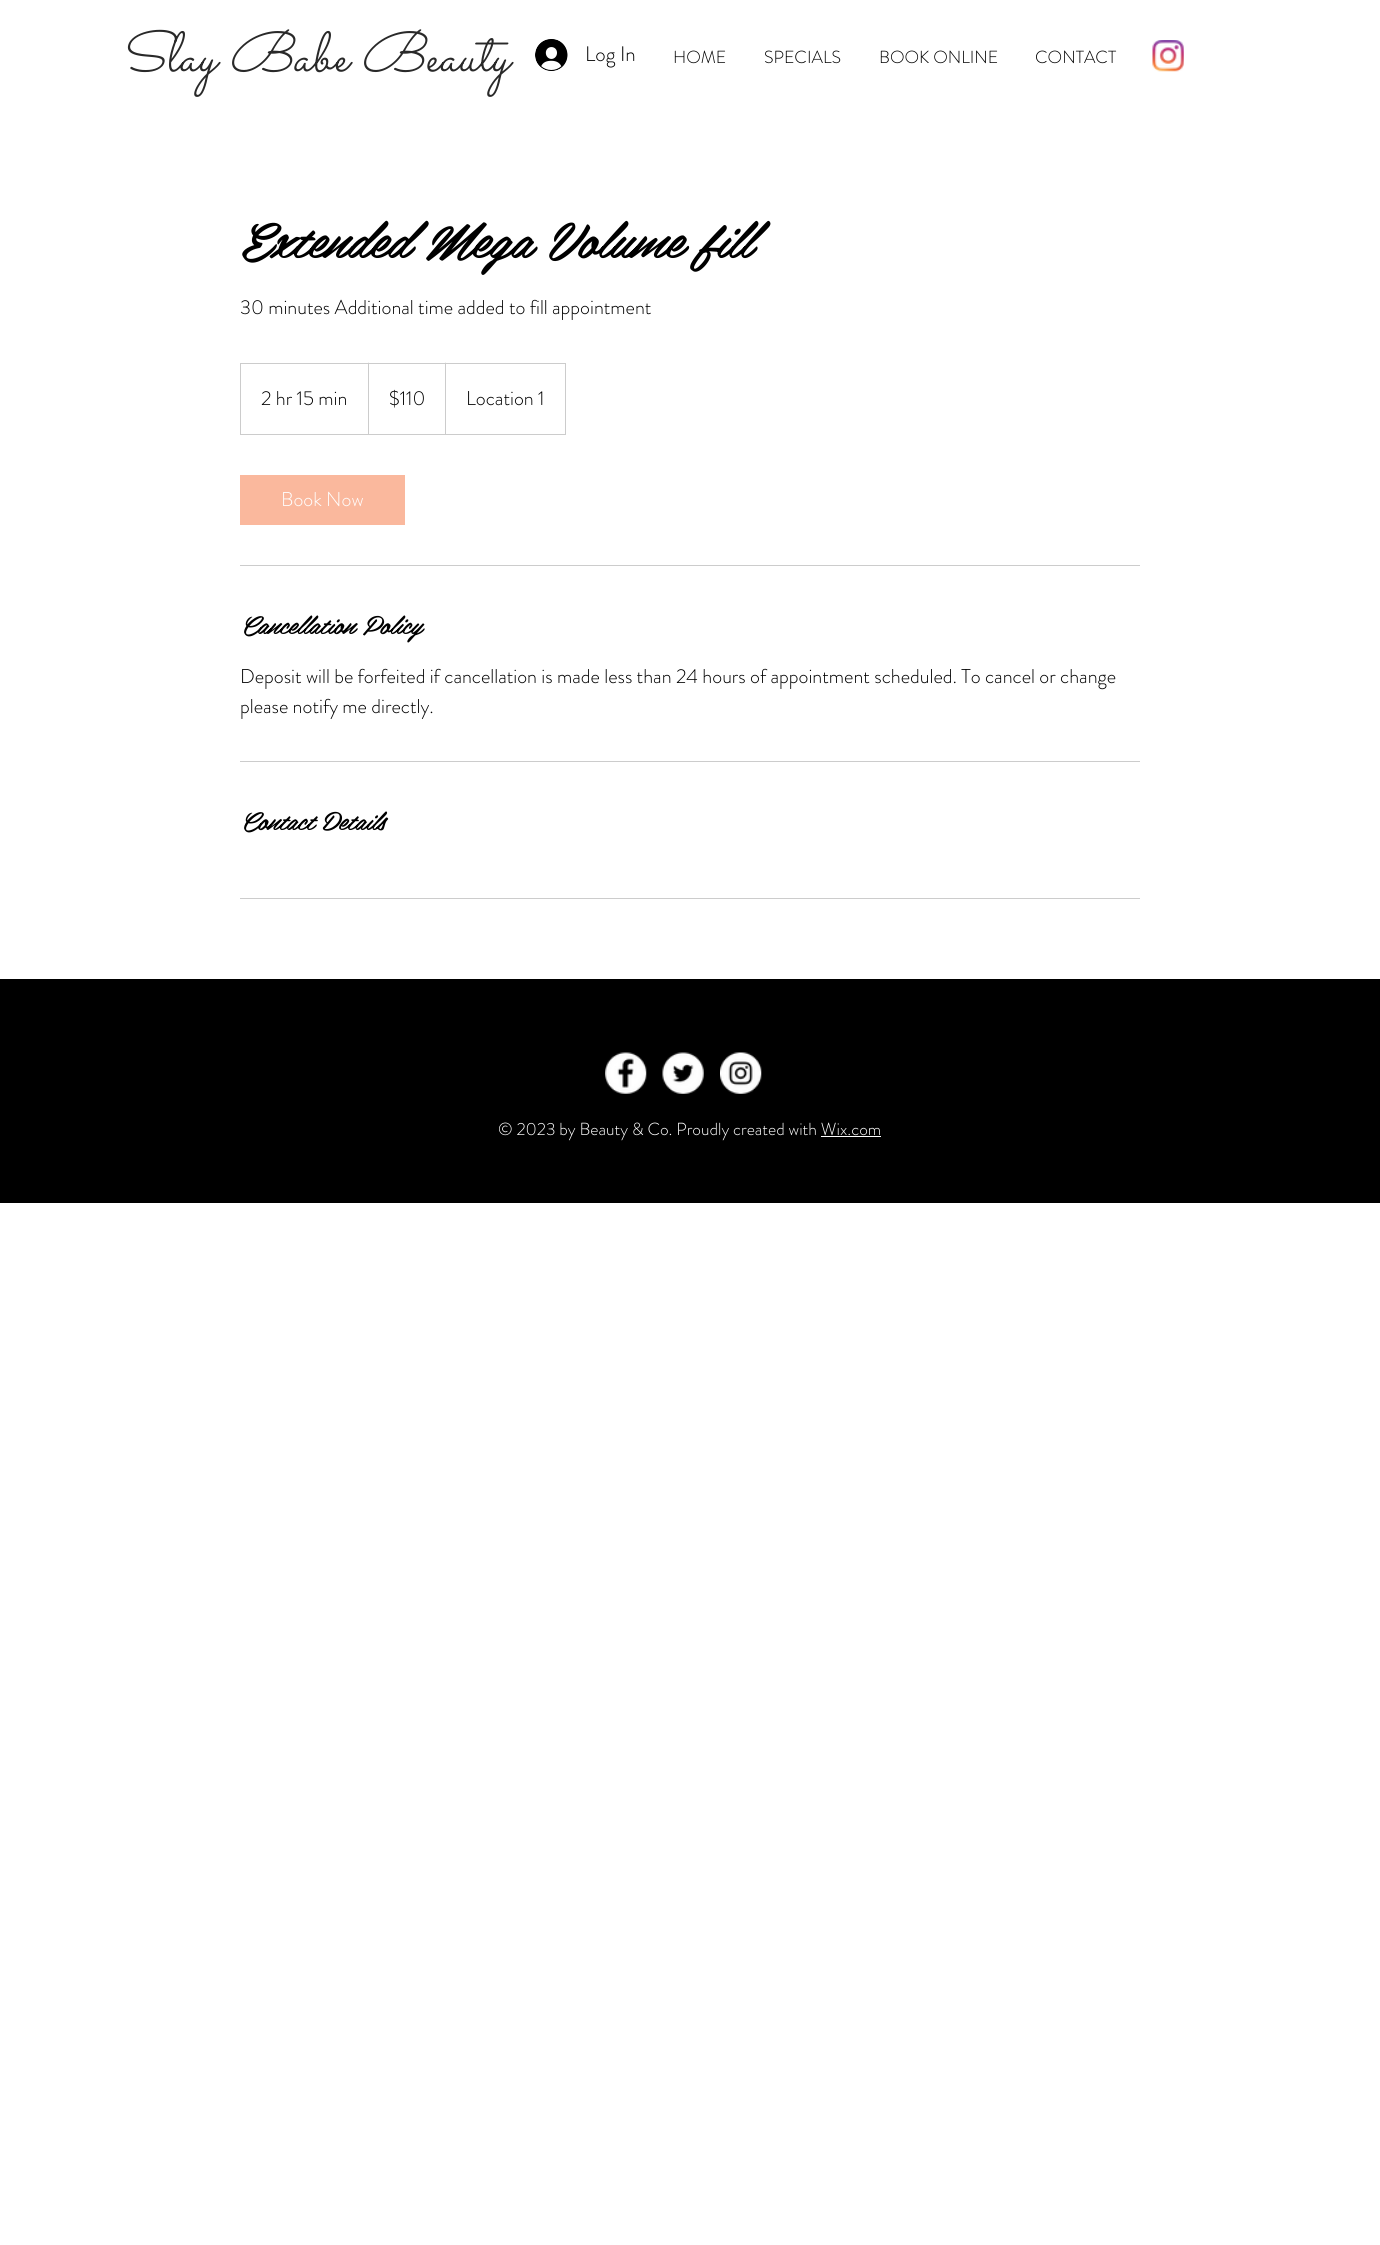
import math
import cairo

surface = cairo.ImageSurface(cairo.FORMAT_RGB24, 1380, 2245)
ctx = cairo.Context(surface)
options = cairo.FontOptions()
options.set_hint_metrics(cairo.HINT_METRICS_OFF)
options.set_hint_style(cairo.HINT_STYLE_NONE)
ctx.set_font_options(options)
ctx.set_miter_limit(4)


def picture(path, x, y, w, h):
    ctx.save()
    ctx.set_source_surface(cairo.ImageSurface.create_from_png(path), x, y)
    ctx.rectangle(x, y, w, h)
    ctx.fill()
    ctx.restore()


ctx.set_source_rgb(1, 1, 1)
ctx.paint()
ctx.select_font_face("Sacramento", cairo.FONT_SLANT_ITALIC)
ctx.set_font_size(56.25)
ctx.set_source_rgb(0.161, 0.161, 0.161)
ctx.move_to(119, 71)
ctx.show_text("Slay Babe Beauty")
picture("img1.png", 535, 39, 33, 32)
ctx.select_font_face("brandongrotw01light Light")
ctx.set_font_size(21)
ctx.set_source_rgb(0, 0, 0)
ctx.move_to(585, 61)
ctx.show_text("Log In")
ctx.set_font_size(17.5)
ctx.move_to(673, 63)
ctx.show_text("HOME")
ctx.move_to(764, 63)
ctx.show_text("SPECIALS")
ctx.move_to(879, 63)
ctx.show_text("BOOK ONLINE")
ctx.move_to(1035, 63)
ctx.show_text("CONTACT")
picture("img2.png", 1152, 40, 32, 32)
ctx.select_font_face("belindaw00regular", cairo.FONT_SLANT_ITALIC)
ctx.set_font_size(50)
ctx.move_to(240, 258)
ctx.show_text("Extended Mega Volume fill")
ctx.select_font_face("brandongrotw01light Light")
ctx.set_font_size(20)
ctx.move_to(240, 314)
ctx.show_text("30 minutes Additional time added to fill appointment")
ctx.rectangle(240.5, 363.5, 325, 71)
ctx.set_source_rgb(0.8, 0.8, 0.8)
ctx.set_line_width(1)
ctx.stroke()
ctx.set_source_rgb(0, 0, 0)
ctx.move_to(261, 405)
ctx.show_text("2 hr 15 min")
ctx.set_source_rgb(0.8, 0.8, 0.8)
ctx.new_path()
ctx.move_to(368, 434)
ctx.line_to(368, 362)
ctx.line_to(369, 364)
ctx.line_to(369, 434)
ctx.close_path()
ctx.fill()
ctx.set_source_rgb(0, 0, 0)
ctx.move_to(389, 405)
ctx.show_text("$110")
ctx.set_source_rgb(0.8, 0.8, 0.8)
ctx.new_path()
ctx.move_to(445, 434)
ctx.line_to(445, 362)
ctx.line_to(446, 364)
ctx.line_to(446, 434)
ctx.close_path()
ctx.fill()
ctx.set_source_rgb(0, 0, 0)
ctx.move_to(466, 405)
ctx.show_text("Location 1")
ctx.set_source_rgb(0.98, 0.722, 0.616)
ctx.rectangle(240, 475, 165, 50)
ctx.fill()
ctx.set_source_rgb(1, 1, 1)
ctx.move_to(281, 506)
ctx.show_text("Book Now")
ctx.set_source_rgb(0.8, 0.8, 0.8)
ctx.rectangle(240, 565, 900, 1)
ctx.fill()
ctx.select_font_face("belindaw00regular", cairo.FONT_SLANT_ITALIC)
ctx.set_font_size(25)
ctx.set_source_rgb(0, 0, 0)
ctx.move_to(240, 634)
ctx.show_text("Cancellation Policy")
ctx.select_font_face("brandongrotw01light Light")
ctx.set_font_size(20)
ctx.move_to(240, 683)
ctx.show_text("Deposit will be forfeited if cancellation is made less than 24 hours of appointment scheduled. To cancel or change")
ctx.move_to(240, 713)
ctx.show_text("please notify me directly.")
ctx.set_source_rgb(0.8, 0.8, 0.8)
ctx.rectangle(240, 761, 900, 1)
ctx.fill()
ctx.select_font_face("belindaw00regular", cairo.FONT_SLANT_ITALIC)
ctx.set_font_size(25)
ctx.set_source_rgb(0, 0, 0)
ctx.move_to(240, 830)
ctx.show_text("Contact Details")
ctx.set_source_rgb(0.8, 0.8, 0.8)
ctx.rectangle(240, 898, 900, 1)
ctx.fill()
ctx.set_source_rgb(0, 0, 0)
ctx.rectangle(0, 979, 1380, 224)
ctx.fill()
picture("img3.png", 605, 1052, 42, 42)
picture("img4.png", 662, 1052, 42, 42)
picture("img5.png", 720, 1052, 42, 42)
ctx.select_font_face("brandongrotw01light Light")
ctx.set_font_size(17.5)
ctx.set_source_rgb(1, 1, 1)
ctx.move_to(498, 1135)
ctx.show_text("© 2023 by Beauty & Co. Proudly created with Wix.com")
ctx.rectangle(821, 1136, 60, 1)
ctx.fill()
surface.write_to_png("page.png")
